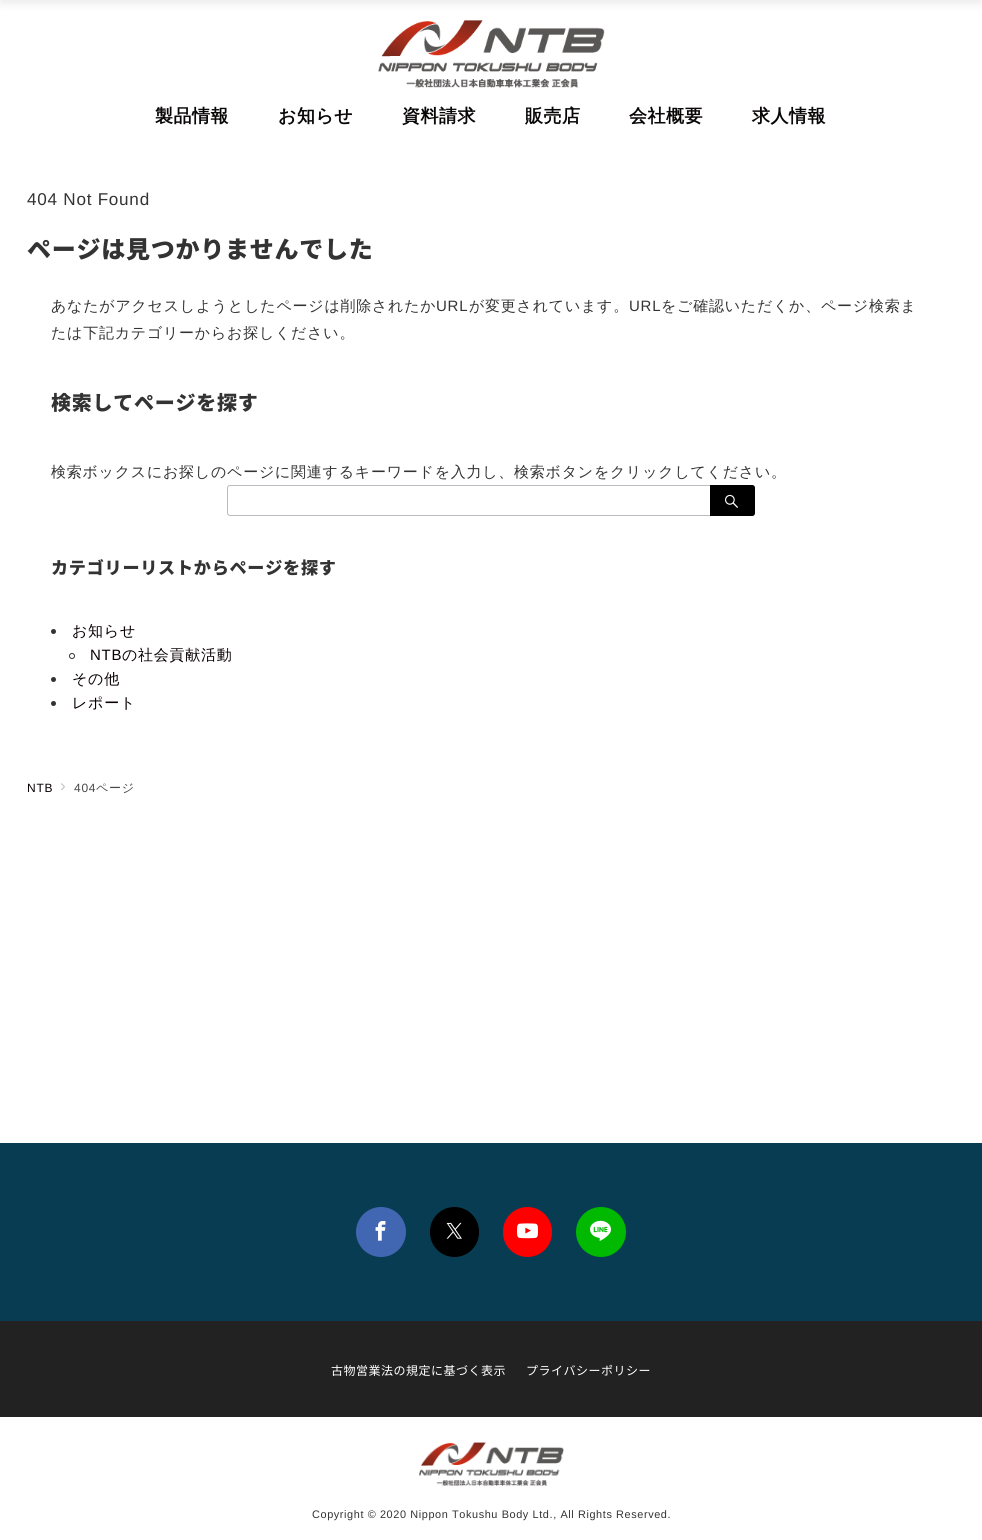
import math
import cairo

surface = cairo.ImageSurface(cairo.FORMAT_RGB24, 982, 1540)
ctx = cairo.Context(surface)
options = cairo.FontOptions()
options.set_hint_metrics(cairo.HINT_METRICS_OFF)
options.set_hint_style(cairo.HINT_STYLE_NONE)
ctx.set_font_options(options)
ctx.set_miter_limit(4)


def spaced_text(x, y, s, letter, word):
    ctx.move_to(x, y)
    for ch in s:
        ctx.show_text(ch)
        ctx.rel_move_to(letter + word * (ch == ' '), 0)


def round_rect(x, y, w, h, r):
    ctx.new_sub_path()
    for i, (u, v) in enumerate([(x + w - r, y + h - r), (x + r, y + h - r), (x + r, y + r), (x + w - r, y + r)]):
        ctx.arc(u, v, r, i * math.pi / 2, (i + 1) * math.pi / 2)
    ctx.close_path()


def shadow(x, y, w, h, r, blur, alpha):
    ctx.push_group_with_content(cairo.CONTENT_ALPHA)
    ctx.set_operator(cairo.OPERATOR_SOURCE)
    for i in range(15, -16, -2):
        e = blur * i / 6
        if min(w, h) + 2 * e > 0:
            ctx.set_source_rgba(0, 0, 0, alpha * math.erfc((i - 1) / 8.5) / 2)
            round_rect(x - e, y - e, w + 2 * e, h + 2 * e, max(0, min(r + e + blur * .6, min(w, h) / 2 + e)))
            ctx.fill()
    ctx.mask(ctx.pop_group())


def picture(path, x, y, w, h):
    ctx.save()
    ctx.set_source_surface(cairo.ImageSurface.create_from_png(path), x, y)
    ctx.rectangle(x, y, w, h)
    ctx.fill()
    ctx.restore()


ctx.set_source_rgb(1, 1, 1)
ctx.paint()
ctx.set_source_rgb(0.231, 0.255, 0.29)
shadow(0, -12, 982, 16, 0, 4, 0.1)
picture("img1.png", 378, 20, 227, 68)
ctx.select_font_face("WenQuanYi Zen Hei", cairo.FONT_SLANT_NORMAL, cairo.FONT_WEIGHT_BOLD)
ctx.set_font_size(18)
ctx.set_source_rgb(0.039, 0.027, 0.027)
spaced_text(155, 122, "製品情報", 0.5, 0)
spaced_text(278, 122, "お知らせ", 0.5, 0)
spaced_text(402, 122, "資料請求", 0.5, 0)
spaced_text(525, 122, "販売店", 0.5, 0)
spaced_text(629, 122, "会社概要", 0.5, 0)
spaced_text(752, 122, "求人情報", 0.5, 0)
ctx.select_font_face("Liberation Sans")
ctx.set_font_size(17.1)
ctx.set_source_rgb(0.2, 0.2, 0.2)
spaced_text(27, 205, "404 Not Found", 0.75, 0)
ctx.select_font_face("Noto Sans JP Black")
ctx.set_font_size(24)
spaced_text(27, 258, "ページは見つかりませんでした", 0.75, 0)
ctx.select_font_face("WenQuanYi Zen Hei Medium")
ctx.set_font_size(15)
spaced_text(51, 311, "あなたがアクセスしようとしたページは削除されたか", 0.75, 0)
ctx.select_font_face("Liberation Sans")
spaced_text(436, 311, "URL", 0.75, 0)
ctx.select_font_face("WenQuanYi Zen Hei Medium")
spaced_text(469, 311, "が変更されています。", 0.75, 0)
ctx.select_font_face("Liberation Sans")
spaced_text(629, 311, "URL", 0.75, 0)
ctx.select_font_face("WenQuanYi Zen Hei Medium")
spaced_text(661, 311, "をご確認いただくか、ページ検索ま", 0.75, 0)
spaced_text(51, 338, "たは下記カテゴリーからお探しください。", 0.75, 0)
ctx.select_font_face("Noto Sans JP Black")
ctx.set_font_size(20)
spaced_text(51, 410, "検索してページを探す", 0.75, 0)
ctx.select_font_face("WenQuanYi Zen Hei Medium")
ctx.set_font_size(15)
spaced_text(51, 477, "検索ボックスにお探しのページに関連するキーワードを入力し、検索ボタンをクリックしてください。", 0.75, 0)
round_rect(227.5, 485.5, 527, 30, 2.5)
ctx.set_source_rgb(0.722, 0.737, 0.753)
ctx.set_line_width(1)
ctx.stroke()
ctx.set_source_rgb(0, 0, 0)
ctx.new_path()
ctx.move_to(710.5, 485.5)
ctx.line_to(752, 485.5)
ctx.curve_to(753.5, 485.5, 754.5, 486.5, 754.5, 488)
ctx.line_to(754.5, 513)
ctx.curve_to(754.5, 514.5, 753.5, 515.5, 752, 515.5)
ctx.line_to(710.5, 515.5)
ctx.close_path()
ctx.fill_preserve()
ctx.stroke()
picture("img2.png", 725, 494, 13, 14)
ctx.select_font_face("Noto Sans JP Black")
ctx.set_font_size(17.1)
ctx.set_source_rgb(0.2, 0.2, 0.2)
spaced_text(51, 574, "カテゴリーリストからページを探す", 0.75, 0)
ctx.new_path()
ctx.arc(53.5, 631.5, 2.5, 0, 2 * math.pi)
ctx.fill()
ctx.select_font_face("WenQuanYi Zen Hei Medium")
ctx.set_font_size(15)
ctx.set_source_rgb(0.039, 0, 0.016)
spaced_text(72, 636, "お知らせ", 0.75, 0)
ctx.new_path()
ctx.arc(72, 656, 2.5, 0, 2 * math.pi)
ctx.set_source_rgb(0.2, 0.2, 0.2)
ctx.stroke()
ctx.select_font_face("Liberation Sans")
ctx.set_source_rgb(0.039, 0, 0.016)
spaced_text(90, 660, "NTB", 0.75, 0)
ctx.select_font_face("WenQuanYi Zen Hei Medium")
spaced_text(122, 660, "の社会貢献活動", 0.75, 0)
ctx.set_source_rgb(0.2, 0.2, 0.2)
ctx.new_path()
ctx.arc(53.5, 679.5, 2.5, 0, 2 * math.pi)
ctx.fill()
ctx.set_source_rgb(0.039, 0, 0.016)
spaced_text(72, 684, "その他", 0.75, 0)
ctx.set_source_rgb(0.2, 0.2, 0.2)
ctx.new_path()
ctx.arc(53.5, 703.5, 2.5, 0, 2 * math.pi)
ctx.fill()
ctx.set_source_rgb(0.039, 0, 0.016)
spaced_text(72, 708, "レポート", 0.75, 0)
ctx.select_font_face("Liberation Sans")
ctx.set_font_size(12)
spaced_text(27, 792, "NTB", 0.75, 0)
picture("img3.png", 61, 783, 4, 8)
ctx.set_source_rgb(0.282, 0.282, 0.282)
spaced_text(74, 792, "404", 0.75, 0)
ctx.select_font_face("WenQuanYi Zen Hei Medium")
spaced_text(96, 792, "ページ", 0.75, 0)
ctx.set_source_rgb(0.031, 0.235, 0.322)
ctx.rectangle(0, 1143, 982, 178)
ctx.fill()
ctx.set_source_rgb(0.259, 0.404, 0.698)
ctx.arc(381, 1232, 25, 0, 2 * math.pi)
ctx.fill()
picture("img4.png", 375, 1221, 11, 20)
ctx.set_source_rgb(0, 0, 0)
round_rect(430, 1207, 49, 50, 24.5)
ctx.fill()
picture("img5.png", 446, 1222, 16, 17)
ctx.set_source_rgb(1, 0, 0)
round_rect(503, 1207, 49, 50, 24.5)
ctx.fill()
picture("img6.png", 517, 1223, 21, 16)
ctx.set_source_rgb(0, 0.725, 0)
ctx.arc(601, 1232, 25, 0, 2 * math.pi)
ctx.fill()
picture("img7.png", 590, 1220, 21, 21)
ctx.set_source_rgb(0.133, 0.133, 0.133)
ctx.rectangle(0, 1321, 982, 96)
ctx.fill()
ctx.select_font_face("Noto Sans JP")
ctx.set_source_rgb(1, 1, 1)
spaced_text(331, 1375, "古物営業法の規定に基づく表示", 0.5, 0)
spaced_text(526, 1375, "プライバシーポリシー", 0.5, 0)
picture("img8.png", 419, 1442, 145, 44)
ctx.select_font_face("Liberation Sans")
ctx.set_font_size(10.9)
ctx.set_source_rgb(0.2, 0.2, 0.2)
spaced_text(312, 1518, "Copyright © 2020 Nippon Tokushu Body Ltd., All Rights Reserved.", 0.6, 0)
surface.write_to_png("page.png")
